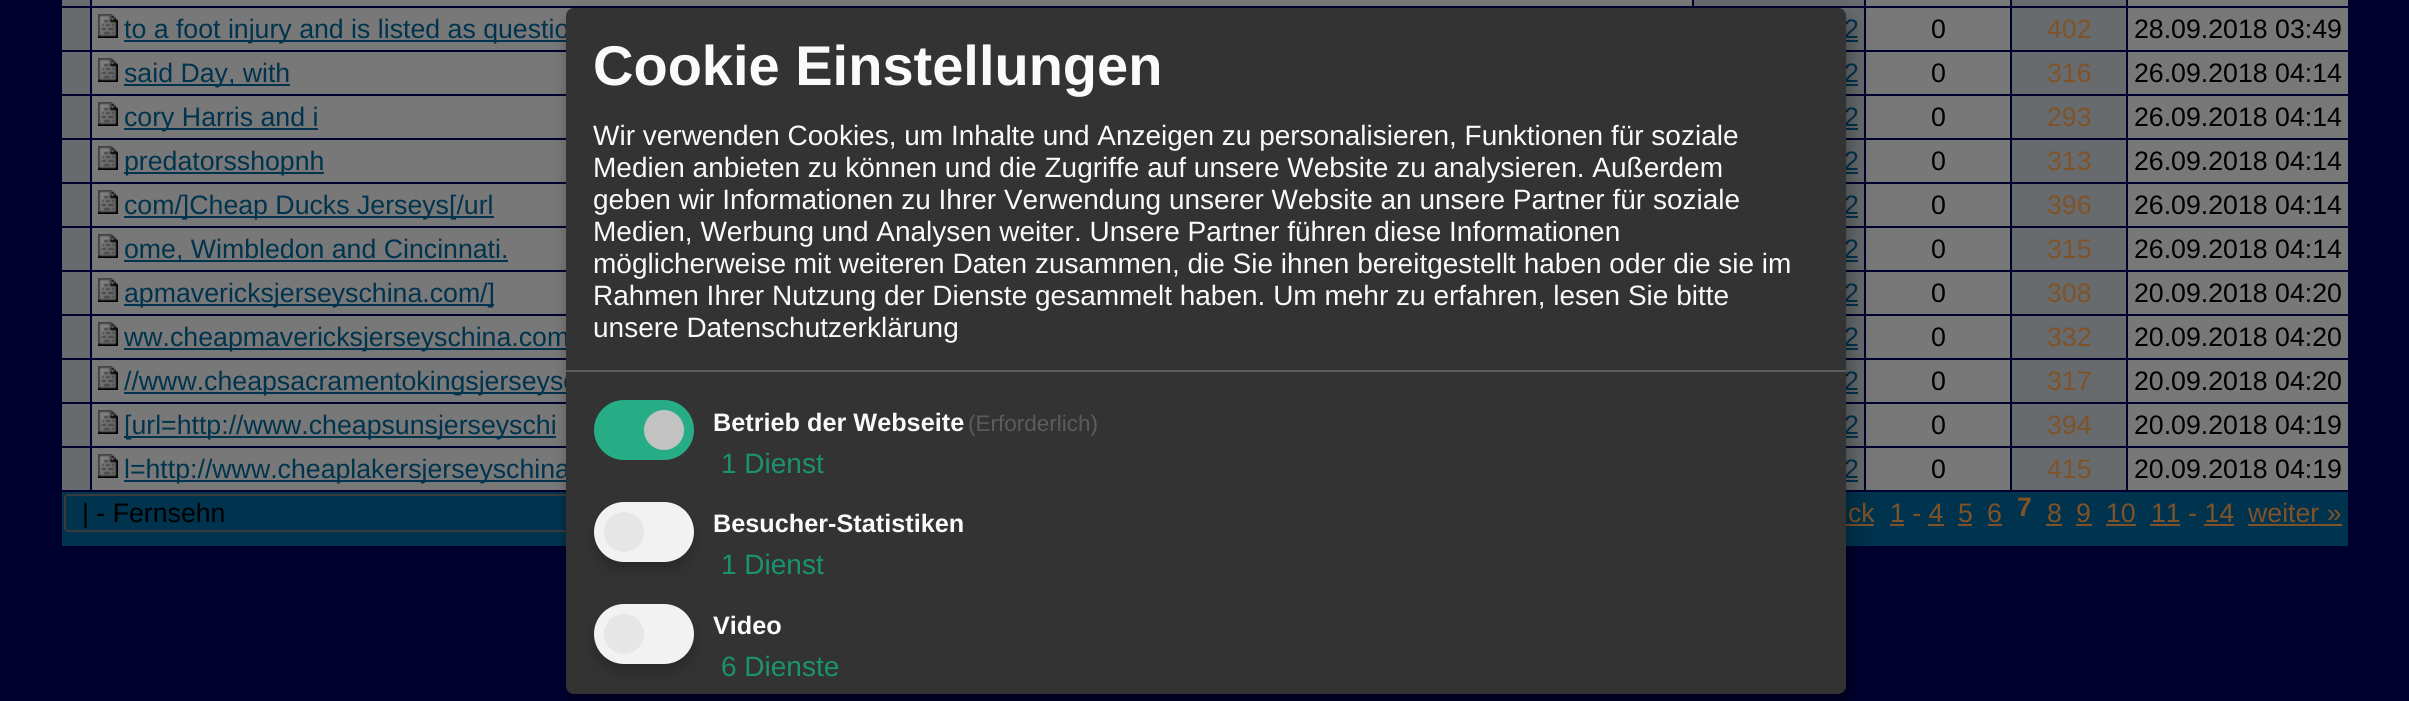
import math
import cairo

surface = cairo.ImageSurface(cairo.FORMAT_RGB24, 2409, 701)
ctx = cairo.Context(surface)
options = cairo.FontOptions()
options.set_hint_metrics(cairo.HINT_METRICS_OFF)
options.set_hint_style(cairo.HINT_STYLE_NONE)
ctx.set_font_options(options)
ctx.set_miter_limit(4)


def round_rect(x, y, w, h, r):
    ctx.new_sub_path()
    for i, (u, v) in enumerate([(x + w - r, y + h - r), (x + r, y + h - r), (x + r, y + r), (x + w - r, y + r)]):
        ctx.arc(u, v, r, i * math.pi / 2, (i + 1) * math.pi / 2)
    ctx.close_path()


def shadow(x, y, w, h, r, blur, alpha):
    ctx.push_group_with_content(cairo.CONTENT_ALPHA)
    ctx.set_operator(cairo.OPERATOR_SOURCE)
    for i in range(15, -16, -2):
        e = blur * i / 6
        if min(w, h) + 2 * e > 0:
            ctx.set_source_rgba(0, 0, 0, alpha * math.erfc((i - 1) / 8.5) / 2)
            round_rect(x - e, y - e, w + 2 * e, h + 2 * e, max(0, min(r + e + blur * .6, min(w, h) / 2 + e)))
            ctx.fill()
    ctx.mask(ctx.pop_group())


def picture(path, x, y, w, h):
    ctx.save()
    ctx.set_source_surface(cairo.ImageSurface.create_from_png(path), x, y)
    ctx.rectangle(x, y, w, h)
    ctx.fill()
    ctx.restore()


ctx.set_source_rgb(0, 0, 0.184)
ctx.paint()
ctx.set_source_rgb(0.404, 0.42, 0.431)
ctx.rectangle(62, 0, 28, 6)
ctx.fill()
ctx.set_source_rgb(0.471, 0.471, 0.471)
ctx.rectangle(92, 0, 1600, 6)
ctx.fill()
ctx.set_source_rgb(0.404, 0.42, 0.431)
ctx.rectangle(1694, 0, 170, 6)
ctx.fill()
ctx.set_source_rgb(0.471, 0.471, 0.471)
ctx.rectangle(1866, 0, 144, 6)
ctx.fill()
ctx.set_source_rgb(0.404, 0.42, 0.431)
ctx.rectangle(2012, 0, 114, 6)
ctx.fill()
ctx.set_source_rgb(0.471, 0.471, 0.471)
ctx.rectangle(2128, 0, 220, 6)
ctx.fill()
ctx.set_source_rgb(0.404, 0.42, 0.431)
ctx.rectangle(62, 8, 28, 42)
ctx.fill()
ctx.set_source_rgb(0.471, 0.471, 0.471)
ctx.rectangle(92, 8, 482, 42)
ctx.fill()
picture("img1.png", 98, 14, 20, 24)
ctx.set_source_rgb(0, 0.2, 0.302)
ctx.rectangle(124, 40, 442, 2)
ctx.fill()
ctx.select_font_face("Liberation Sans")
ctx.set_font_size(26.7)
ctx.move_to(124, 38)
ctx.show_text("to a foot injury and is listed as questio")
ctx.set_source_rgb(0.404, 0.42, 0.431)
ctx.rectangle(1838, 8, 26, 42)
ctx.fill()
ctx.set_source_rgb(0, 0.2, 0.302)
ctx.move_to(1844, 38)
ctx.show_text("2")
ctx.rectangle(1846, 40, 12, 2)
ctx.fill()
ctx.set_source_rgb(0.471, 0.471, 0.471)
ctx.rectangle(1866, 8, 144, 42)
ctx.fill()
ctx.set_source_rgb(0, 0, 0)
ctx.move_to(1931, 38)
ctx.show_text("0")
ctx.set_source_rgb(0.404, 0.42, 0.431)
ctx.rectangle(2012, 8, 114, 42)
ctx.fill()
ctx.set_source_rgb(0.502, 0.322, 0.157)
ctx.move_to(2047, 38)
ctx.show_text("402")
ctx.set_source_rgb(0.471, 0.471, 0.471)
ctx.rectangle(2128, 8, 220, 42)
ctx.fill()
ctx.set_source_rgb(0, 0, 0)
ctx.move_to(2134, 38)
ctx.show_text("28.09.2018 03:49")
ctx.set_source_rgb(0.404, 0.42, 0.431)
ctx.rectangle(62, 52, 28, 42)
ctx.fill()
ctx.set_source_rgb(0.471, 0.471, 0.471)
ctx.rectangle(92, 52, 474, 42)
ctx.fill()
picture("img1.png", 98, 58, 20, 24)
ctx.set_source_rgb(0, 0.2, 0.302)
ctx.rectangle(124, 84, 166, 2)
ctx.fill()
ctx.move_to(124, 82)
ctx.show_text("said Day, with")
ctx.set_source_rgb(0.404, 0.42, 0.431)
ctx.rectangle(1846, 52, 18, 42)
ctx.fill()
ctx.set_source_rgb(0, 0.2, 0.302)
ctx.move_to(1844, 82)
ctx.show_text("2")
ctx.rectangle(1846, 84, 12, 2)
ctx.fill()
ctx.set_source_rgb(0.471, 0.471, 0.471)
ctx.rectangle(1866, 52, 144, 42)
ctx.fill()
ctx.set_source_rgb(0, 0, 0)
ctx.move_to(1931, 82)
ctx.show_text("0")
ctx.set_source_rgb(0.404, 0.42, 0.431)
ctx.rectangle(2012, 52, 114, 42)
ctx.fill()
ctx.set_source_rgb(0.502, 0.322, 0.157)
ctx.move_to(2047, 82)
ctx.show_text("316")
ctx.set_source_rgb(0.471, 0.471, 0.471)
ctx.rectangle(2128, 52, 220, 42)
ctx.fill()
ctx.set_source_rgb(0, 0, 0)
ctx.move_to(2134, 82)
ctx.show_text("26.09.2018 04:14")
ctx.set_source_rgb(0.404, 0.42, 0.431)
ctx.rectangle(62, 96, 28, 42)
ctx.fill()
ctx.set_source_rgb(0.471, 0.471, 0.471)
ctx.rectangle(92, 96, 474, 42)
ctx.fill()
picture("img1.png", 98, 102, 20, 24)
ctx.set_source_rgb(0, 0.2, 0.302)
ctx.rectangle(124, 128, 194, 2)
ctx.fill()
ctx.move_to(124, 126)
ctx.show_text("cory Harris and i")
ctx.set_source_rgb(0.404, 0.42, 0.431)
ctx.rectangle(1846, 96, 18, 42)
ctx.fill()
ctx.set_source_rgb(0, 0.2, 0.302)
ctx.move_to(1844, 126)
ctx.show_text("2")
ctx.rectangle(1846, 128, 12, 2)
ctx.fill()
ctx.set_source_rgb(0.471, 0.471, 0.471)
ctx.rectangle(1866, 96, 144, 42)
ctx.fill()
ctx.set_source_rgb(0, 0, 0)
ctx.move_to(1931, 126)
ctx.show_text("0")
ctx.set_source_rgb(0.404, 0.42, 0.431)
ctx.rectangle(2012, 96, 114, 42)
ctx.fill()
ctx.set_source_rgb(0.502, 0.322, 0.157)
ctx.move_to(2047, 126)
ctx.show_text("293")
ctx.set_source_rgb(0.471, 0.471, 0.471)
ctx.rectangle(2128, 96, 220, 42)
ctx.fill()
ctx.set_source_rgb(0, 0, 0)
ctx.move_to(2134, 126)
ctx.show_text("26.09.2018 04:14")
ctx.set_source_rgb(0.404, 0.42, 0.431)
ctx.rectangle(62, 140, 28, 42)
ctx.fill()
ctx.set_source_rgb(0.471, 0.471, 0.471)
ctx.rectangle(92, 140, 474, 42)
ctx.fill()
picture("img1.png", 98, 146, 20, 24)
ctx.set_source_rgb(0, 0.2, 0.302)
ctx.rectangle(124, 172, 200, 2)
ctx.fill()
ctx.move_to(124, 170)
ctx.show_text("predatorsshopnh")
ctx.set_source_rgb(0.404, 0.42, 0.431)
ctx.rectangle(1846, 140, 18, 42)
ctx.fill()
ctx.set_source_rgb(0, 0.2, 0.302)
ctx.move_to(1844, 170)
ctx.show_text("2")
ctx.rectangle(1846, 172, 12, 2)
ctx.fill()
ctx.set_source_rgb(0.471, 0.471, 0.471)
ctx.rectangle(1866, 140, 144, 42)
ctx.fill()
ctx.set_source_rgb(0, 0, 0)
ctx.move_to(1931, 170)
ctx.show_text("0")
ctx.set_source_rgb(0.404, 0.42, 0.431)
ctx.rectangle(2012, 140, 114, 42)
ctx.fill()
ctx.set_source_rgb(0.502, 0.322, 0.157)
ctx.move_to(2047, 170)
ctx.show_text("313")
ctx.set_source_rgb(0.471, 0.471, 0.471)
ctx.rectangle(2128, 140, 220, 42)
ctx.fill()
ctx.set_source_rgb(0, 0, 0)
ctx.move_to(2134, 170)
ctx.show_text("26.09.2018 04:14")
ctx.set_source_rgb(0.404, 0.42, 0.431)
ctx.rectangle(62, 184, 28, 42)
ctx.fill()
ctx.set_source_rgb(0.471, 0.471, 0.471)
ctx.rectangle(92, 184, 474, 42)
ctx.fill()
picture("img1.png", 98, 190, 20, 24)
ctx.set_source_rgb(0, 0.2, 0.302)
ctx.rectangle(124, 216, 370, 2)
ctx.fill()
ctx.move_to(124, 214)
ctx.show_text("com/]Cheap Ducks Jerseys[/url")
ctx.set_source_rgb(0.404, 0.42, 0.431)
ctx.rectangle(1846, 184, 18, 42)
ctx.fill()
ctx.set_source_rgb(0, 0.2, 0.302)
ctx.move_to(1844, 214)
ctx.show_text("2")
ctx.rectangle(1846, 216, 12, 2)
ctx.fill()
ctx.set_source_rgb(0.471, 0.471, 0.471)
ctx.rectangle(1866, 184, 144, 42)
ctx.fill()
ctx.set_source_rgb(0, 0, 0)
ctx.move_to(1931, 214)
ctx.show_text("0")
ctx.set_source_rgb(0.404, 0.42, 0.431)
ctx.rectangle(2012, 184, 114, 42)
ctx.fill()
ctx.set_source_rgb(0.502, 0.322, 0.157)
ctx.move_to(2047, 214)
ctx.show_text("396")
ctx.set_source_rgb(0.471, 0.471, 0.471)
ctx.rectangle(2128, 184, 220, 42)
ctx.fill()
ctx.set_source_rgb(0, 0, 0)
ctx.move_to(2134, 214)
ctx.show_text("26.09.2018 04:14")
ctx.set_source_rgb(0.404, 0.42, 0.431)
ctx.rectangle(62, 228, 28, 42)
ctx.fill()
ctx.set_source_rgb(0.471, 0.471, 0.471)
ctx.rectangle(92, 228, 474, 42)
ctx.fill()
picture("img1.png", 98, 234, 20, 24)
ctx.set_source_rgb(0, 0.2, 0.302)
ctx.rectangle(124, 260, 384, 2)
ctx.fill()
ctx.move_to(124, 258)
ctx.show_text("ome, Wimbledon and Cincinnati.")
ctx.set_source_rgb(0.404, 0.42, 0.431)
ctx.rectangle(1846, 228, 18, 42)
ctx.fill()
ctx.set_source_rgb(0, 0.2, 0.302)
ctx.move_to(1844, 258)
ctx.show_text("2")
ctx.rectangle(1846, 260, 12, 2)
ctx.fill()
ctx.set_source_rgb(0.471, 0.471, 0.471)
ctx.rectangle(1866, 228, 144, 42)
ctx.fill()
ctx.set_source_rgb(0, 0, 0)
ctx.move_to(1931, 258)
ctx.show_text("0")
ctx.set_source_rgb(0.404, 0.42, 0.431)
ctx.rectangle(2012, 228, 114, 42)
ctx.fill()
ctx.set_source_rgb(0.502, 0.322, 0.157)
ctx.move_to(2047, 258)
ctx.show_text("315")
ctx.set_source_rgb(0.471, 0.471, 0.471)
ctx.rectangle(2128, 228, 220, 42)
ctx.fill()
ctx.set_source_rgb(0, 0, 0)
ctx.move_to(2134, 258)
ctx.show_text("26.09.2018 04:14")
ctx.set_source_rgb(0.404, 0.42, 0.431)
ctx.rectangle(62, 272, 28, 42)
ctx.fill()
ctx.set_source_rgb(0.471, 0.471, 0.471)
ctx.rectangle(92, 272, 474, 42)
ctx.fill()
picture("img1.png", 98, 278, 20, 24)
ctx.set_source_rgb(0, 0.2, 0.302)
ctx.rectangle(124, 304, 370, 2)
ctx.fill()
ctx.move_to(124, 302)
ctx.show_text("apmavericksjerseyschina.com/]")
ctx.set_source_rgb(0.404, 0.42, 0.431)
ctx.rectangle(1846, 272, 18, 42)
ctx.fill()
ctx.set_source_rgb(0, 0.2, 0.302)
ctx.move_to(1844, 302)
ctx.show_text("2")
ctx.rectangle(1846, 304, 12, 2)
ctx.fill()
ctx.set_source_rgb(0.471, 0.471, 0.471)
ctx.rectangle(1866, 272, 144, 42)
ctx.fill()
ctx.set_source_rgb(0, 0, 0)
ctx.move_to(1931, 302)
ctx.show_text("0")
ctx.set_source_rgb(0.404, 0.42, 0.431)
ctx.rectangle(2012, 272, 114, 42)
ctx.fill()
ctx.set_source_rgb(0.502, 0.322, 0.157)
ctx.move_to(2047, 302)
ctx.show_text("308")
ctx.set_source_rgb(0.471, 0.471, 0.471)
ctx.rectangle(2128, 272, 220, 42)
ctx.fill()
ctx.set_source_rgb(0, 0, 0)
ctx.move_to(2134, 302)
ctx.show_text("20.09.2018 04:20")
ctx.set_source_rgb(0.404, 0.42, 0.431)
ctx.rectangle(62, 316, 28, 42)
ctx.fill()
ctx.set_source_rgb(0.471, 0.471, 0.471)
ctx.rectangle(92, 316, 474, 42)
ctx.fill()
picture("img1.png", 98, 322, 20, 24)
ctx.set_source_rgb(0, 0.2, 0.302)
ctx.rectangle(124, 348, 442, 2)
ctx.fill()
ctx.move_to(124, 346)
ctx.show_text("ww.cheapmavericksjerseyschina.com")
ctx.set_source_rgb(0.404, 0.42, 0.431)
ctx.rectangle(1846, 316, 18, 42)
ctx.fill()
ctx.set_source_rgb(0, 0.2, 0.302)
ctx.move_to(1844, 346)
ctx.show_text("2")
ctx.rectangle(1846, 348, 12, 2)
ctx.fill()
ctx.set_source_rgb(0.471, 0.471, 0.471)
ctx.rectangle(1866, 316, 144, 42)
ctx.fill()
ctx.set_source_rgb(0, 0, 0)
ctx.move_to(1931, 346)
ctx.show_text("0")
ctx.set_source_rgb(0.404, 0.42, 0.431)
ctx.rectangle(2012, 316, 114, 42)
ctx.fill()
ctx.set_source_rgb(0.502, 0.322, 0.157)
ctx.move_to(2047, 346)
ctx.show_text("332")
ctx.set_source_rgb(0.471, 0.471, 0.471)
ctx.rectangle(2128, 316, 220, 42)
ctx.fill()
ctx.set_source_rgb(0, 0, 0)
ctx.move_to(2134, 346)
ctx.show_text("20.09.2018 04:20")
ctx.set_source_rgb(0.404, 0.42, 0.431)
ctx.rectangle(62, 360, 28, 42)
ctx.fill()
ctx.set_source_rgb(0.471, 0.471, 0.471)
ctx.rectangle(92, 360, 474, 42)
ctx.fill()
picture("img1.png", 98, 366, 20, 24)
ctx.set_source_rgb(0, 0.2, 0.302)
ctx.rectangle(124, 392, 442, 2)
ctx.fill()
ctx.move_to(124, 390)
ctx.show_text("//www.cheapsacramentokingsjerseysc")
ctx.set_source_rgb(0.404, 0.42, 0.431)
ctx.rectangle(1846, 360, 18, 42)
ctx.fill()
ctx.set_source_rgb(0, 0.2, 0.302)
ctx.move_to(1844, 390)
ctx.show_text("2")
ctx.rectangle(1846, 392, 12, 2)
ctx.fill()
ctx.set_source_rgb(0.471, 0.471, 0.471)
ctx.rectangle(1866, 360, 144, 42)
ctx.fill()
ctx.set_source_rgb(0, 0, 0)
ctx.move_to(1931, 390)
ctx.show_text("0")
ctx.set_source_rgb(0.404, 0.42, 0.431)
ctx.rectangle(2012, 360, 114, 42)
ctx.fill()
ctx.set_source_rgb(0.502, 0.322, 0.157)
ctx.move_to(2047, 390)
ctx.show_text("317")
ctx.set_source_rgb(0.471, 0.471, 0.471)
ctx.rectangle(2128, 360, 220, 42)
ctx.fill()
ctx.set_source_rgb(0, 0, 0)
ctx.move_to(2134, 390)
ctx.show_text("20.09.2018 04:20")
ctx.set_source_rgb(0.404, 0.42, 0.431)
ctx.rectangle(62, 404, 28, 42)
ctx.fill()
ctx.set_source_rgb(0.471, 0.471, 0.471)
ctx.rectangle(92, 404, 474, 42)
ctx.fill()
picture("img1.png", 98, 410, 20, 24)
ctx.set_source_rgb(0, 0.2, 0.302)
ctx.rectangle(124, 436, 432, 2)
ctx.fill()
ctx.move_to(124, 434)
ctx.show_text("[url=http://www.cheapsunsjerseyschi")
ctx.set_source_rgb(0.404, 0.42, 0.431)
ctx.rectangle(1846, 404, 18, 42)
ctx.fill()
ctx.set_source_rgb(0, 0.2, 0.302)
ctx.move_to(1844, 434)
ctx.show_text("2")
ctx.rectangle(1846, 436, 12, 2)
ctx.fill()
ctx.set_source_rgb(0.471, 0.471, 0.471)
ctx.rectangle(1866, 404, 144, 42)
ctx.fill()
ctx.set_source_rgb(0, 0, 0)
ctx.move_to(1931, 434)
ctx.show_text("0")
ctx.set_source_rgb(0.404, 0.42, 0.431)
ctx.rectangle(2012, 404, 114, 42)
ctx.fill()
ctx.set_source_rgb(0.502, 0.322, 0.157)
ctx.move_to(2047, 434)
ctx.show_text("394")
ctx.set_source_rgb(0.471, 0.471, 0.471)
ctx.rectangle(2128, 404, 220, 42)
ctx.fill()
ctx.set_source_rgb(0, 0, 0)
ctx.move_to(2134, 434)
ctx.show_text("20.09.2018 04:19")
ctx.set_source_rgb(0.404, 0.42, 0.431)
ctx.rectangle(62, 448, 28, 42)
ctx.fill()
ctx.set_source_rgb(0.471, 0.471, 0.471)
ctx.rectangle(92, 448, 474, 42)
ctx.fill()
picture("img1.png", 98, 454, 20, 24)
ctx.set_source_rgb(0, 0.2, 0.302)
ctx.rectangle(124, 480, 442, 2)
ctx.fill()
ctx.move_to(124, 478)
ctx.show_text("l=http://www.cheaplakersjerseyschina")
ctx.set_source_rgb(0.404, 0.42, 0.431)
ctx.rectangle(1846, 448, 18, 42)
ctx.fill()
ctx.set_source_rgb(0, 0.2, 0.302)
ctx.move_to(1844, 478)
ctx.show_text("2")
ctx.rectangle(1846, 480, 12, 2)
ctx.fill()
ctx.set_source_rgb(0.471, 0.471, 0.471)
ctx.rectangle(1866, 448, 144, 42)
ctx.fill()
ctx.set_source_rgb(0, 0, 0)
ctx.move_to(1931, 478)
ctx.show_text("0")
ctx.set_source_rgb(0.404, 0.42, 0.431)
ctx.rectangle(2012, 448, 114, 42)
ctx.fill()
ctx.set_source_rgb(0.502, 0.322, 0.157)
ctx.move_to(2047, 478)
ctx.show_text("415")
ctx.set_source_rgb(0.471, 0.471, 0.471)
ctx.rectangle(2128, 448, 220, 42)
ctx.fill()
ctx.set_source_rgb(0, 0, 0)
ctx.move_to(2134, 478)
ctx.show_text("20.09.2018 04:19")
ctx.set_source_rgb(0, 0.2, 0.302)
ctx.rectangle(62, 492, 2286, 54)
ctx.fill()
round_rect(65, 495, 794, 36, 3)
ctx.set_source_rgb(0.231, 0.231, 0.231)
ctx.stroke()
ctx.set_source_rgb(0, 0, 0)
ctx.move_to(82, 522)
ctx.show_text("| - Fernsehn")
ctx.set_source_rgb(0.502, 0.322, 0.157)
ctx.move_to(1848, 522)
ctx.show_text("ck")
ctx.rectangle(1846, 524, 28, 2)
ctx.fill()
ctx.move_to(1890, 522)
ctx.show_text("1 - 4")
ctx.rectangle(1890, 524, 14, 2)
ctx.fill()
ctx.move_to(1958, 522)
ctx.show_text("5")
ctx.rectangle(1958, 524, 14, 2)
ctx.fill()
ctx.move_to(1987, 522)
ctx.show_text("6")
ctx.rectangle(1988, 524, 14, 2)
ctx.fill()
ctx.select_font_face("Liberation Sans", cairo.FONT_SLANT_NORMAL, cairo.FONT_WEIGHT_BOLD)
ctx.move_to(2017, 516)
ctx.show_text("7")
ctx.select_font_face("Liberation Sans")
ctx.move_to(2047, 522)
ctx.show_text("8")
ctx.rectangle(2046, 524, 16, 2)
ctx.fill()
ctx.move_to(2076, 522)
ctx.show_text("9")
ctx.rectangle(2076, 524, 16, 2)
ctx.fill()
ctx.move_to(2106, 522)
ctx.show_text("10")
ctx.rectangle(2106, 524, 30, 2)
ctx.fill()
ctx.move_to(2151, 522)
ctx.show_text("11 - 14")
ctx.rectangle(2150, 524, 30, 2)
ctx.fill()
ctx.move_to(2248, 522)
ctx.show_text("weiter »")
ctx.rectangle(2248, 524, 94, 2)
ctx.fill()
ctx.rectangle(1928, 524, 16, 2)
ctx.fill()
ctx.rectangle(2204, 524, 30, 2)
ctx.fill()
ctx.set_source_rgb(0, 0, 0)
shadow(576, 18, 1280, 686, 8, 10, 0.19)
shadow(566, 16, 1280, 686, 8, 6, 0.2)
ctx.set_source_rgb(0.2, 0.2, 0.2)
round_rect(566, 8, 1280, 686, 8)
ctx.fill()
ctx.set_source_rgb(0.361, 0.361, 0.361)
ctx.rectangle(566, 370, 1280, 2)
ctx.fill()
ctx.select_font_face("Liberation Sans", cairo.FONT_SLANT_NORMAL, cairo.FONT_WEIGHT_BOLD)
ctx.set_font_size(56)
ctx.set_source_rgb(0.98, 0.98, 0.98)
ctx.move_to(593, 85)
ctx.show_text("Cookie Einstellungen")
ctx.select_font_face("Liberation Sans")
ctx.set_font_size(28)
ctx.move_to(593, 145)
ctx.show_text("Wir verwenden Cookies, um Inhalte und Anzeigen zu personalisieren, Funktionen für soziale")
ctx.move_to(593, 177)
ctx.show_text("Medien anbieten zu können und die Zugriffe auf unsere Website zu analysieren. Außerdem")
ctx.move_to(593, 209)
ctx.show_text("geben wir Informationen zu Ihrer Verwendung unserer Website an unsere Partner für soziale")
ctx.move_to(593, 241)
ctx.show_text("Medien, Werbung und Analysen weiter. Unsere Partner führen diese Informationen")
ctx.move_to(593, 273)
ctx.show_text("möglicherweise mit weiteren Daten zusammen, die Sie ihnen bereitgestellt haben oder die sie im")
ctx.move_to(593, 305)
ctx.show_text("Rahmen Ihrer Nutzung der Dienste gesammelt haben. Um mehr zu erfahren, lesen Sie bitte")
ctx.move_to(593, 337)
ctx.show_text("unsere Datenschutzerklärung")
ctx.set_source_rgb(0.153, 0.678, 0.522)
round_rect(594, 400, 100, 60, 30)
ctx.fill()
ctx.set_source_rgb(0.761, 0.761, 0.761)
ctx.arc(664, 430, 20, 0, 2 * math.pi)
ctx.fill()
ctx.select_font_face("Liberation Sans", cairo.FONT_SLANT_NORMAL, cairo.FONT_WEIGHT_BOLD)
ctx.set_font_size(25.25)
ctx.set_source_rgb(0.98, 0.98, 0.98)
ctx.move_to(713, 431)
ctx.show_text("Betrieb der Webseite")
ctx.select_font_face("Liberation Sans")
ctx.set_font_size(22.5)
ctx.set_source_rgb(0.361, 0.361, 0.361)
ctx.move_to(968, 431)
ctx.show_text("(Erforderlich)")
ctx.set_font_size(28)
ctx.set_source_rgb(0.102, 0.576, 0.435)
ctx.move_to(721, 473)
ctx.show_text("1 Dienst")
ctx.set_source_rgb(0, 0, 0)
shadow(594, 510, 100, 60, 30, 6, 0.2)
ctx.set_source_rgb(0.949, 0.949, 0.949)
round_rect(594, 502, 100, 60, 30)
ctx.fill()
ctx.set_source_rgb(0.902, 0.902, 0.902)
ctx.arc(624, 532, 20, 0, 2 * math.pi)
ctx.fill()
ctx.select_font_face("Liberation Sans", cairo.FONT_SLANT_NORMAL, cairo.FONT_WEIGHT_BOLD)
ctx.set_font_size(25.25)
ctx.set_source_rgb(0.98, 0.98, 0.98)
ctx.move_to(713, 532)
ctx.show_text("Besucher-Statistiken")
ctx.select_font_face("Liberation Sans")
ctx.set_font_size(28)
ctx.set_source_rgb(0.102, 0.576, 0.435)
ctx.move_to(721, 574)
ctx.show_text("1 Dienst")
ctx.set_source_rgb(0, 0, 0)
shadow(594, 612, 100, 60, 30, 6, 0.2)
ctx.set_source_rgb(0.949, 0.949, 0.949)
round_rect(594, 604, 100, 60, 30)
ctx.fill()
ctx.set_source_rgb(0.902, 0.902, 0.902)
ctx.arc(624, 634, 20, 0, 2 * math.pi)
ctx.fill()
ctx.select_font_face("Liberation Sans", cairo.FONT_SLANT_NORMAL, cairo.FONT_WEIGHT_BOLD)
ctx.set_font_size(25.25)
ctx.set_source_rgb(0.98, 0.98, 0.98)
ctx.move_to(713, 634)
ctx.show_text("Video")
ctx.select_font_face("Liberation Sans")
ctx.set_font_size(28)
ctx.set_source_rgb(0.102, 0.576, 0.435)
ctx.move_to(721, 676)
ctx.show_text("6 Dienste")
surface.write_to_png("page.png")
